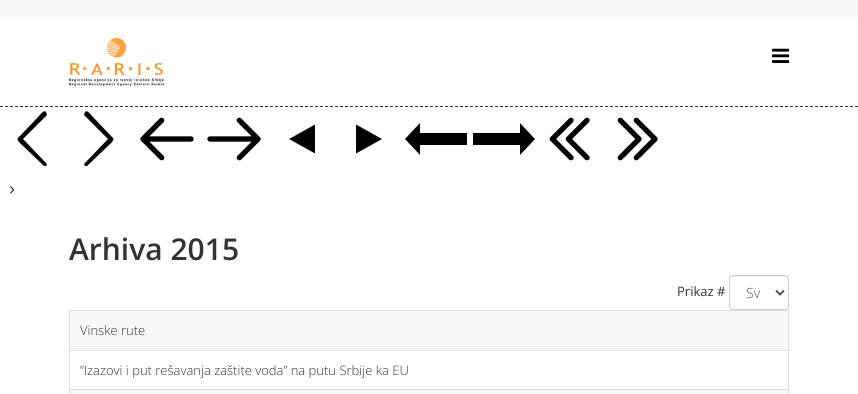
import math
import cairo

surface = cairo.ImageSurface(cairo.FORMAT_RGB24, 858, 394)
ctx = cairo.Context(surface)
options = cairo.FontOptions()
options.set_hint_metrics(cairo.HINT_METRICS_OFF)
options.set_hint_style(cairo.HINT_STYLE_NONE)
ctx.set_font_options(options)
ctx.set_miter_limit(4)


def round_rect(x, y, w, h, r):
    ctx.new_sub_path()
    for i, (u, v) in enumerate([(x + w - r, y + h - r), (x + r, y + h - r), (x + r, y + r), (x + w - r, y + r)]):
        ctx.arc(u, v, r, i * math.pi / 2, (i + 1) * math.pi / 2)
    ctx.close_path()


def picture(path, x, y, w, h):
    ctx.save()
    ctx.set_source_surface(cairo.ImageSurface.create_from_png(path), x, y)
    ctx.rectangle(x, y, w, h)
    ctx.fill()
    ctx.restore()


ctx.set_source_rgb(1, 1, 1)
ctx.paint()
ctx.set_source_rgb(0.961, 0.961, 0.961)
ctx.rectangle(0, 0, 858, 17)
ctx.fill()
ctx.new_path()
ctx.move_to(0, 106.5)
ctx.line_to(858, 106.5)
ctx.set_source_rgb(0.2, 0.2, 0.2)
ctx.set_line_width(1)
ctx.set_dash([3, 2])
ctx.stroke()
picture("img1.png", 69, 38, 95, 48)
picture("img2.png", 772, 48, 18, 15)
ctx.set_source_rgb(0, 0, 0)
ctx.new_path()
ctx.move_to(46, 163)
ctx.curve_to(48, 164, 46, 167, 44, 166)
ctx.line_to(22, 145)
ctx.curve_to(21, 144, 16, 140, 18, 138)
ctx.line_to(39, 116)
ctx.curve_to(39, 116, 44, 109, 46, 112)
ctx.line_to(47, 115)
ctx.line_to(23, 139)
ctx.close_path()
ctx.fill()
ctx.new_path()
ctx.move_to(85, 163)
ctx.curve_to(83, 164, 85, 167, 87, 166)
ctx.line_to(109, 145)
ctx.curve_to(110, 144, 115, 140, 113, 138)
ctx.line_to(92, 116)
ctx.curve_to(92, 116, 87, 109, 85, 112)
ctx.line_to(84, 115)
ctx.line_to(108, 139)
ctx.close_path()
ctx.fill()
picture("img3.png", 140, 117, 54, 44)
picture("img4.png", 207, 117, 54, 44)
ctx.new_path()
ctx.move_to(315, 124.5)
ctx.line_to(315, 153.5)
ctx.line_to(289, 139)
ctx.close_path()
ctx.fill()
ctx.new_path()
ctx.move_to(356, 124.5)
ctx.line_to(356, 153.5)
ctx.line_to(382, 139)
ctx.close_path()
ctx.fill()
ctx.new_path()
ctx.move_to(420, 155)
ctx.line_to(420, 145)
ctx.line_to(467, 145)
ctx.line_to(467, 133)
ctx.line_to(420, 133)
ctx.line_to(420, 123)
ctx.line_to(405, 139)
ctx.close_path()
ctx.fill()
ctx.new_path()
ctx.move_to(520, 155)
ctx.line_to(520, 145)
ctx.line_to(473, 145)
ctx.line_to(473, 133)
ctx.line_to(520, 133)
ctx.line_to(520, 123)
ctx.line_to(535, 139)
ctx.close_path()
ctx.fill()
picture("img5.png", 549, 117, 41, 44)
picture("img6.png", 617, 117, 41, 44)
picture("img7.png", 10, 186, 5, 8)
ctx.select_font_face("Open Sans SemiBold")
ctx.set_font_size(30)
ctx.set_source_rgb(0.2, 0.2, 0.2)
ctx.move_to(69, 260)
ctx.show_text("Arhiva 2015")
ctx.select_font_face("Open Sans")
ctx.set_font_size(13)
ctx.move_to(677, 296)
ctx.show_text("Prikaz #")
ctx.set_source_rgb(0.925, 0.925, 0.925)
ctx.new_path()
ctx.move_to(733, 277)
ctx.line_to(785, 277)
ctx.curve_to(787, 277, 788, 278, 788, 280)
ctx.curve_to(788, 274, 781, 276, 776, 276)
ctx.line_to(742, 276)
ctx.curve_to(737, 276, 730, 274, 730, 280)
ctx.curve_to(730, 278, 731, 277, 733, 277)
ctx.close_path()
ctx.fill()
round_rect(729.5, 275.5, 59, 34, 3.5)
ctx.set_source_rgb(0.8, 0.8, 0.8)
ctx.set_dash([])
ctx.stroke()
ctx.new_path()
ctx.move_to(776, 290.5)
ctx.line_to(780, 294.5)
ctx.line_to(784, 290.5)
ctx.set_source_rgb(0.333, 0.333, 0.333)
ctx.set_line_width(2)
ctx.stroke()
ctx.select_font_face("Open Sans Light")
ctx.set_font_size(14)
ctx.move_to(746, 298)
ctx.show_text("Sv")
ctx.set_source_rgb(0.976, 0.976, 0.976)
ctx.rectangle(70, 311, 718, 39)
ctx.fill()
ctx.set_source_rgb(0.867, 0.867, 0.867)
ctx.rectangle(69, 310, 720, 1)
ctx.fill()
ctx.rectangle(69, 350, 720, 1)
ctx.fill()
ctx.rectangle(69, 389, 720, 1)
ctx.fill()
ctx.set_source_rgb(0.976, 0.976, 0.976)
ctx.rectangle(70, 390, 719, 4)
ctx.fill()
ctx.set_source_rgb(0.867, 0.867, 0.867)
ctx.rectangle(788, 389, 1, 5)
ctx.fill()
ctx.rectangle(788, 350, 1, 40)
ctx.fill()
ctx.rectangle(788, 310, 1, 41)
ctx.fill()
ctx.rectangle(69, 389, 1, 5)
ctx.fill()
ctx.rectangle(69, 350, 1, 40)
ctx.fill()
ctx.rectangle(69, 310, 1, 41)
ctx.fill()
ctx.set_font_size(13)
ctx.set_source_rgb(0.2, 0.2, 0.2)
ctx.move_to(80, 335)
ctx.show_text("Vinske rute")
ctx.move_to(80, 375)
ctx.show_text("’’Izazovi i put rešavanja zaštite voda’’ na putu Srbije ka EU")
surface.write_to_png("page.png")
